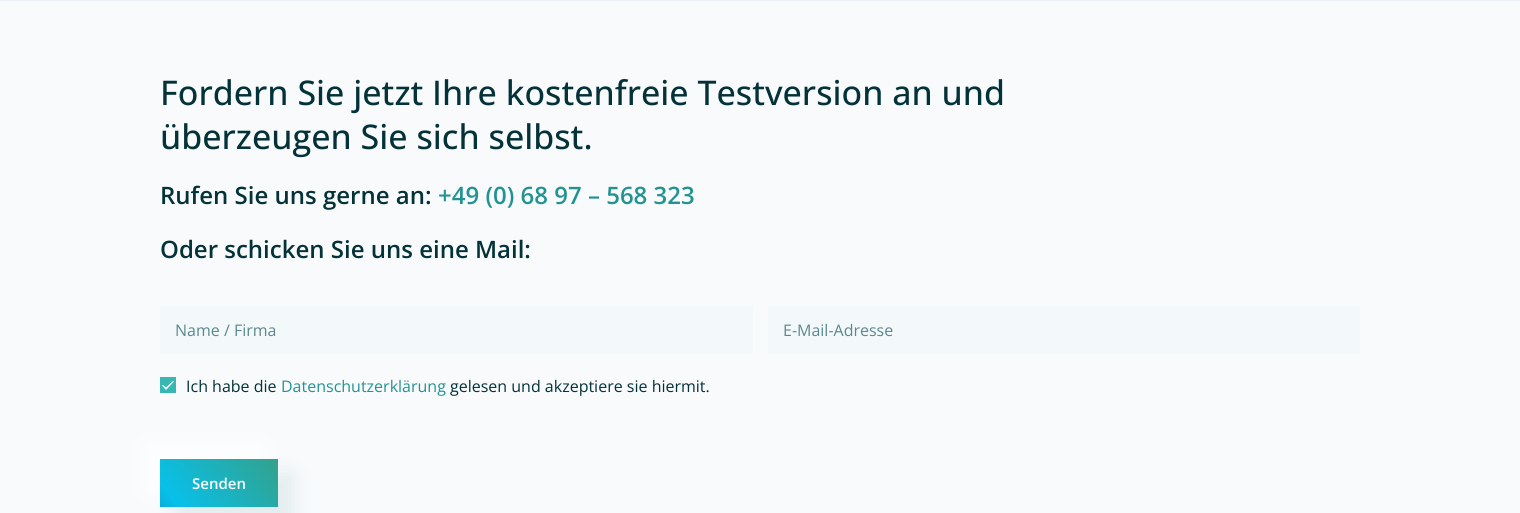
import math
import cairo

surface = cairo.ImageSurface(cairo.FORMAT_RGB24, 1520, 513)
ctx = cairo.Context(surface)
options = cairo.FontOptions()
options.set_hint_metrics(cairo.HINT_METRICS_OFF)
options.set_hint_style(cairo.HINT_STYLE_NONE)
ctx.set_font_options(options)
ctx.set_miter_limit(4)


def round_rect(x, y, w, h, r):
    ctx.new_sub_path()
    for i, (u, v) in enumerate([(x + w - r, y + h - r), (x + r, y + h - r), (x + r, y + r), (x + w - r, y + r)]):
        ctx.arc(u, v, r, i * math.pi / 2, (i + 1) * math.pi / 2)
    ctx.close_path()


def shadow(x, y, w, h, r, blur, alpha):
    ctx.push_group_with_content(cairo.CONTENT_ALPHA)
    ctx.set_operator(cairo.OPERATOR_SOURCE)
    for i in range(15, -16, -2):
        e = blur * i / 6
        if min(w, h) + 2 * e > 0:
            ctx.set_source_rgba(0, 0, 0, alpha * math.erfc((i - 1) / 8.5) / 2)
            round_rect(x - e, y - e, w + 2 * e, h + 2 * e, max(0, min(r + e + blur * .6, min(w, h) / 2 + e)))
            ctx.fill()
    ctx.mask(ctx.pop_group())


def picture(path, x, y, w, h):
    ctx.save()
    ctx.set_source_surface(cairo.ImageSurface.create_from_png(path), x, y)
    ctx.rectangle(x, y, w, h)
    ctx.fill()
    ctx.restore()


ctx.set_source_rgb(0.969, 0.98, 0.988)
ctx.paint()
ctx.set_source_rgb(0.918, 0.945, 0.961)
ctx.rectangle(0, 0, 1520, 1)
ctx.fill()
ctx.select_font_face("Open Sans Medium")
ctx.set_font_size(34)
ctx.set_source_rgb(0.012, 0.196, 0.224)
ctx.move_to(160, 105)
ctx.show_text("Fordern Sie jetzt Ihre kostenfreie Testversion an und")
ctx.move_to(160, 149)
ctx.show_text("überzeugen Sie sich selbst.")
ctx.select_font_face("Open Sans SemiBold")
ctx.set_font_size(24)
ctx.move_to(160, 204)
ctx.show_text("Rufen Sie uns gerne an:")
ctx.set_source_rgb(0.137, 0.576, 0.573)
ctx.move_to(438, 204)
ctx.show_text("+49 (0) 68 97 – 568 323")
ctx.set_source_rgb(0.012, 0.196, 0.224)
ctx.move_to(160, 258)
ctx.show_text("Oder schicken Sie uns eine Mail:")
ctx.set_source_rgb(0.953, 0.973, 0.984)
ctx.rectangle(160, 306, 593, 48)
ctx.fill()
ctx.select_font_face("Open Sans")
ctx.set_font_size(16)
ctx.set_source_rgb(0.357, 0.529, 0.557)
ctx.move_to(175, 336)
ctx.show_text("Name / Firma")
ctx.set_source_rgb(0.953, 0.973, 0.984)
ctx.rectangle(768, 306, 592, 48)
ctx.fill()
ctx.set_source_rgb(0.357, 0.529, 0.557)
ctx.move_to(783, 336)
ctx.show_text("E-Mail-Adresse")
ctx.set_source_rgb(0.224, 0.718, 0.702)
ctx.rectangle(160, 377, 16, 16)
ctx.fill()
picture("img1.png", 162, 381, 12, 9)
ctx.set_source_rgb(0.012, 0.196, 0.224)
ctx.move_to(186, 392)
ctx.show_text("Ich habe die")
ctx.set_source_rgb(0.137, 0.576, 0.573)
ctx.move_to(281, 392)
ctx.show_text("Datenschutzerklärung")
ctx.set_source_rgb(0.012, 0.196, 0.224)
ctx.move_to(450, 392)
ctx.show_text("gelesen und akzeptiere sie hiermit.")
ctx.set_source_rgb(0.098, 0.416, 0.412)
shadow(175, 474, 118, 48, 0, 10, 0.1)
ctx.set_source_rgb(1, 1, 1)
shadow(145, 444, 118, 48, 0, 10, 0.8)
gradient = cairo.LinearGradient(77, 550, 243, 416)
gradient.add_color_stop_rgba(0, 0.008, 0.275, 0.447, 1)
gradient.add_color_stop_rgba(0.5, 0.031, 0.753, 0.918, 1)
gradient.add_color_stop_rgba(1, 0.2, 0.631, 0.545, 1)
ctx.set_source(gradient)
ctx.rectangle(160, 459, 118, 48)
ctx.fill()
ctx.select_font_face("Open Sans SemiBold")
ctx.set_font_size(15)
ctx.set_source_rgb(1, 1, 1)
ctx.move_to(192, 489)
ctx.show_text("Senden")
surface.write_to_png("page.png")
